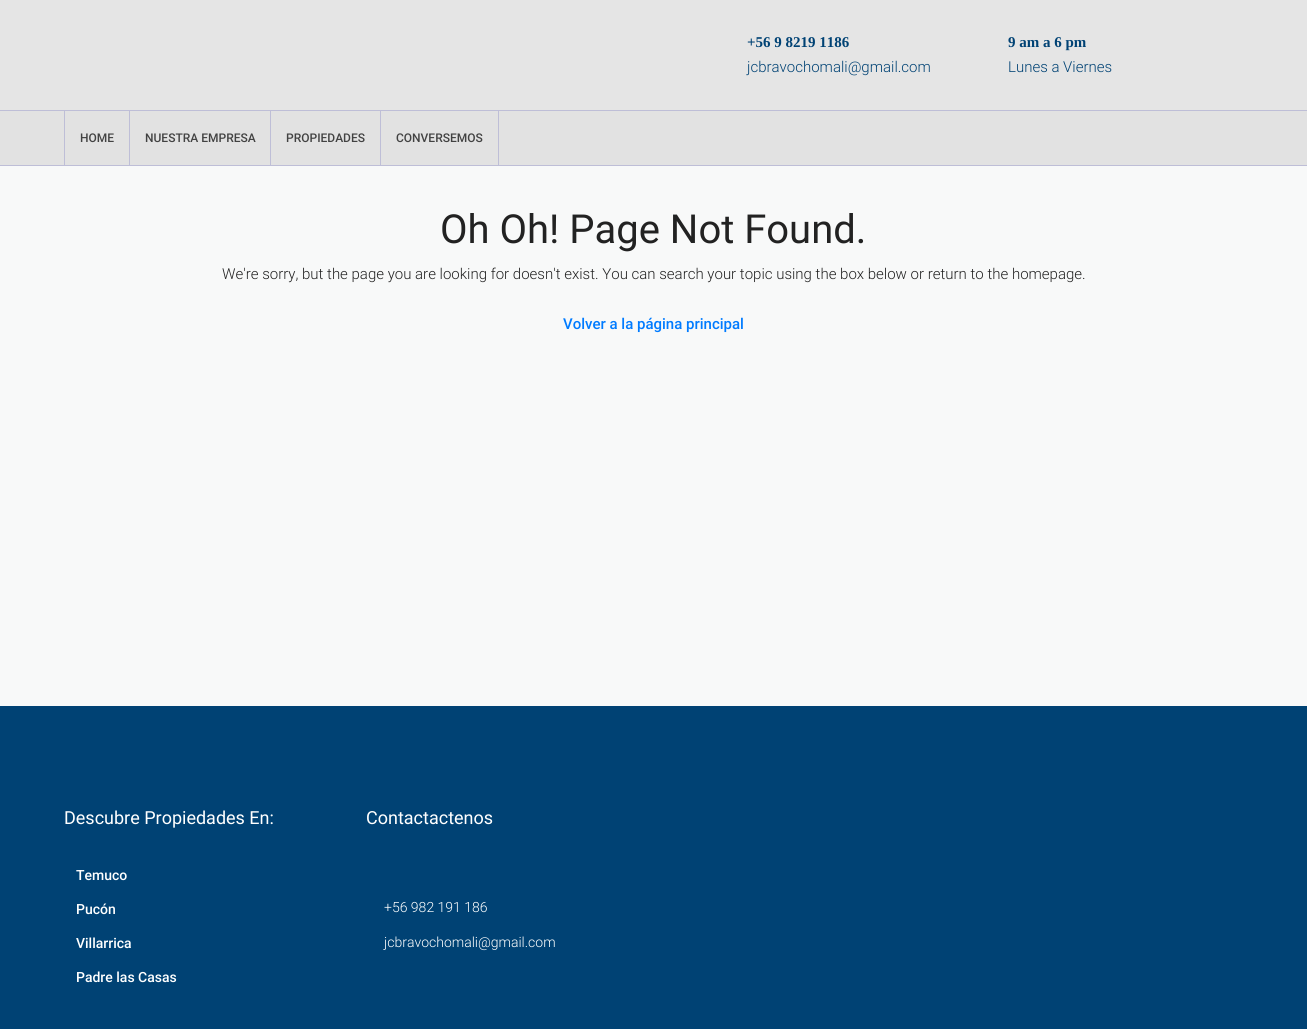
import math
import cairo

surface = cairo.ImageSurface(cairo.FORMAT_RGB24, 1307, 1029)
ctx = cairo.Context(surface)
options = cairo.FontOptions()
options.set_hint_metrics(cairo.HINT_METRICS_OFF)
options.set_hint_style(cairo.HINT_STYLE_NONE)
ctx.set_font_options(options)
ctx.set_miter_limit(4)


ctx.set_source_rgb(0.969, 0.973, 0.976)
ctx.paint()
ctx.set_source_rgb(0.898, 0.898, 0.898)
ctx.rectangle(0, 0, 1307, 110)
ctx.fill()
ctx.select_font_face("Liberation Serif", cairo.FONT_SLANT_NORMAL, cairo.FONT_WEIGHT_BOLD)
ctx.set_font_size(15)
ctx.set_source_rgb(0, 0.259, 0.455)
ctx.move_to(747, 47)
ctx.show_text("+56 9 8219 1186")
ctx.select_font_face("Roboto Light")
ctx.move_to(747, 72)
ctx.show_text("jcbravochomali@gmail.com")
ctx.select_font_face("Liberation Serif", cairo.FONT_SLANT_NORMAL, cairo.FONT_WEIGHT_BOLD)
ctx.move_to(1008, 47)
ctx.show_text("9 am a 6 pm")
ctx.select_font_face("Roboto Light")
ctx.move_to(1008, 72)
ctx.show_text("Lunes a Viernes")
ctx.set_source_rgb(0.886, 0.886, 0.886)
ctx.rectangle(0, 111, 1307, 54)
ctx.fill()
ctx.set_source_rgb(0.745, 0.745, 0.843)
ctx.rectangle(0, 110, 1307, 1)
ctx.fill()
ctx.rectangle(0, 165, 1307, 1)
ctx.fill()
ctx.rectangle(129, 111, 1, 54)
ctx.fill()
ctx.rectangle(64, 111, 1, 54)
ctx.fill()
ctx.select_font_face("Roboto Medium")
ctx.set_font_size(12)
ctx.set_source_rgb(0.259, 0.259, 0.259)
ctx.move_to(80, 142)
ctx.show_text("HOME")
ctx.set_source_rgb(0.745, 0.745, 0.843)
ctx.rectangle(270, 111, 1, 54)
ctx.fill()
ctx.set_source_rgb(0.259, 0.259, 0.259)
ctx.move_to(145, 142)
ctx.show_text("NUESTRA EMPRESA")
ctx.set_source_rgb(0.745, 0.745, 0.843)
ctx.rectangle(380, 111, 1, 54)
ctx.fill()
ctx.set_source_rgb(0.259, 0.259, 0.259)
ctx.move_to(286, 142)
ctx.show_text("PROPIEDADES")
ctx.set_source_rgb(0.745, 0.745, 0.843)
ctx.rectangle(498, 111, 1, 54)
ctx.fill()
ctx.set_source_rgb(0.259, 0.259, 0.259)
ctx.move_to(396, 142)
ctx.show_text("CONVERSEMOS")
ctx.select_font_face("Roboto")
ctx.set_font_size(40)
ctx.set_source_rgb(0.133, 0.133, 0.133)
ctx.move_to(440, 243)
ctx.show_text("Oh Oh! Page Not Found.")
ctx.select_font_face("Roboto Light")
ctx.set_font_size(15)
ctx.move_to(222, 279)
ctx.show_text("We're sorry, but the page you are looking for doesn't exist. You can search your topic using the box below or return to the homepage.")
ctx.select_font_face("Roboto Medium")
ctx.set_source_rgb(0, 0.482, 1)
ctx.move_to(563, 329)
ctx.show_text("Volver a la página principal")
ctx.set_source_rgb(0, 0.259, 0.455)
ctx.rectangle(0, 706, 1307, 323)
ctx.fill()
ctx.select_font_face("Roboto")
ctx.set_font_size(18)
ctx.set_source_rgb(1, 1, 1)
ctx.move_to(64, 824)
ctx.show_text("Descubre Propiedades En:")
ctx.select_font_face("Roboto Medium")
ctx.set_font_size(14)
ctx.move_to(76, 880)
ctx.show_text("Temuco")
ctx.move_to(76, 914)
ctx.show_text("Pucón")
ctx.move_to(76, 948)
ctx.show_text("Villarrica")
ctx.move_to(76, 982)
ctx.show_text("Padre las Casas")
ctx.select_font_face("Roboto")
ctx.set_font_size(18)
ctx.move_to(366, 824)
ctx.show_text("Contactactenos")
ctx.select_font_face("Roboto Light")
ctx.set_font_size(14)
ctx.move_to(384, 912)
ctx.show_text("+56 982 191 186")
ctx.move_to(384, 947)
ctx.show_text("jcbravochomali@gmail.com")
surface.write_to_png("page.png")
